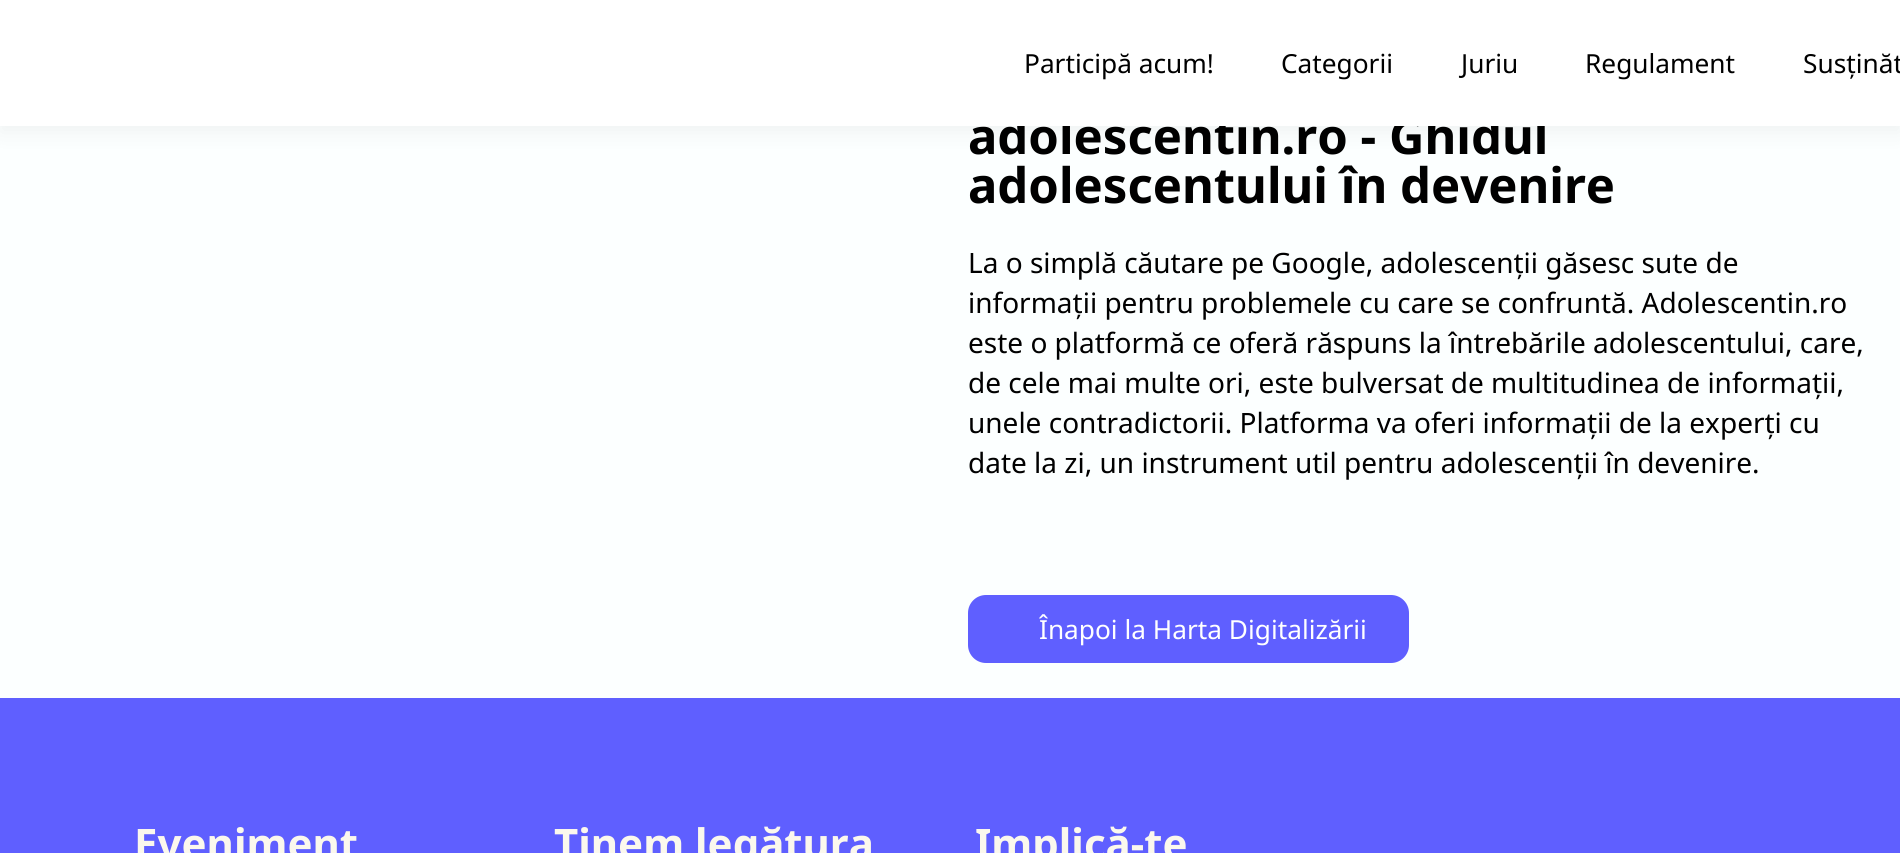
import math
import cairo

surface = cairo.ImageSurface(cairo.FORMAT_RGB24, 1900, 853)
ctx = cairo.Context(surface)
options = cairo.FontOptions()
options.set_hint_metrics(cairo.HINT_METRICS_OFF)
options.set_hint_style(cairo.HINT_STYLE_NONE)
ctx.set_font_options(options)
ctx.set_miter_limit(4)


def round_rect(x, y, w, h, r):
    ctx.new_sub_path()
    for i, (u, v) in enumerate([(x + w - r, y + h - r), (x + r, y + h - r), (x + r, y + r), (x + w - r, y + r)]):
        ctx.arc(u, v, r, i * math.pi / 2, (i + 1) * math.pi / 2)
    ctx.close_path()


def shadow(x, y, w, h, r, blur, alpha):
    ctx.push_group_with_content(cairo.CONTENT_ALPHA)
    ctx.set_operator(cairo.OPERATOR_SOURCE)
    for i in range(15, -16, -2):
        e = blur * i / 6
        if min(w, h) + 2 * e > 0:
            ctx.set_source_rgba(0, 0, 0, alpha * math.erfc((i - 1) / 8.5) / 2)
            round_rect(x - e, y - e, w + 2 * e, h + 2 * e, max(0, min(r + e + blur * .6, min(w, h) / 2 + e)))
            ctx.fill()
    ctx.mask(ctx.pop_group())


ctx.set_source_rgb(0.988, 1, 1)
ctx.paint()
ctx.set_source_rgb(0, 0, 0)
shadow(0, 7, 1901, 126, 0, 10.5, 0.05)
ctx.select_font_face("Noto Sans", cairo.FONT_SLANT_NORMAL, cairo.FONT_WEIGHT_BOLD)
ctx.set_font_size(49)
ctx.set_source_rgb(0, 0, 0)
ctx.move_to(968, 154)
ctx.show_text("adolescentin.ro - Ghidul")
ctx.set_source_rgb(1, 1, 1)
ctx.rectangle(0, 0, 1900, 126)
ctx.fill()
ctx.select_font_face("Noto Sans")
ctx.set_font_size(26.25)
ctx.set_source_rgb(0, 0, 0)
ctx.move_to(1024, 73)
ctx.show_text("Participă acum!")
ctx.move_to(1281, 73)
ctx.show_text("Categorii")
ctx.move_to(1461, 73)
ctx.show_text("Juriu")
ctx.move_to(1585, 73)
ctx.show_text("Regulament")
ctx.move_to(1803, 73)
ctx.show_text("Susținăt")
ctx.select_font_face("Noto Sans", cairo.FONT_SLANT_NORMAL, cairo.FONT_WEIGHT_BOLD)
ctx.set_font_size(49)
ctx.move_to(968, 203)
ctx.show_text("adolescentului în devenire")
ctx.select_font_face("Noto Sans")
ctx.set_font_size(28)
ctx.move_to(968, 273)
ctx.show_text("La o simplă căutare pe Google, adolescenții găsesc sute de")
ctx.move_to(968, 313)
ctx.show_text("informații pentru problemele cu care se confruntă. Adolescentin.ro")
ctx.move_to(968, 353)
ctx.show_text("este o platformă ce oferă răspuns la întrebările adolescentului, care,")
ctx.move_to(968, 393)
ctx.show_text("de cele mai multe ori, este bulversat de multitudinea de informații,")
ctx.move_to(968, 433)
ctx.show_text("unele contradictorii. Platforma va oferi informații de la experți cu")
ctx.move_to(968, 473)
ctx.show_text("date la zi, un instrument util pentru adolescenții în devenire.")
ctx.set_source_rgb(0.373, 0.373, 1)
round_rect(968, 595, 441, 68, 18)
ctx.fill()
ctx.set_font_size(26.25)
ctx.set_source_rgb(1, 1, 1)
ctx.move_to(1039, 639)
ctx.show_text("Înapoi la Harta Digitalizării")
ctx.set_source_rgb(0.373, 0.373, 1)
ctx.rectangle(0, 698, 1900, 155)
ctx.fill()
ctx.select_font_face("Noto Sans", cairo.FONT_SLANT_NORMAL, cairo.FONT_WEIGHT_BOLD)
ctx.set_font_size(42)
ctx.set_source_rgb(0.984, 0.969, 0.929)
ctx.move_to(134, 859)
ctx.show_text("Eveniment")
ctx.move_to(554, 859)
ctx.show_text("Ținem legătura")
ctx.move_to(975, 859)
ctx.show_text("Implică-te")
surface.write_to_png("page.png")
